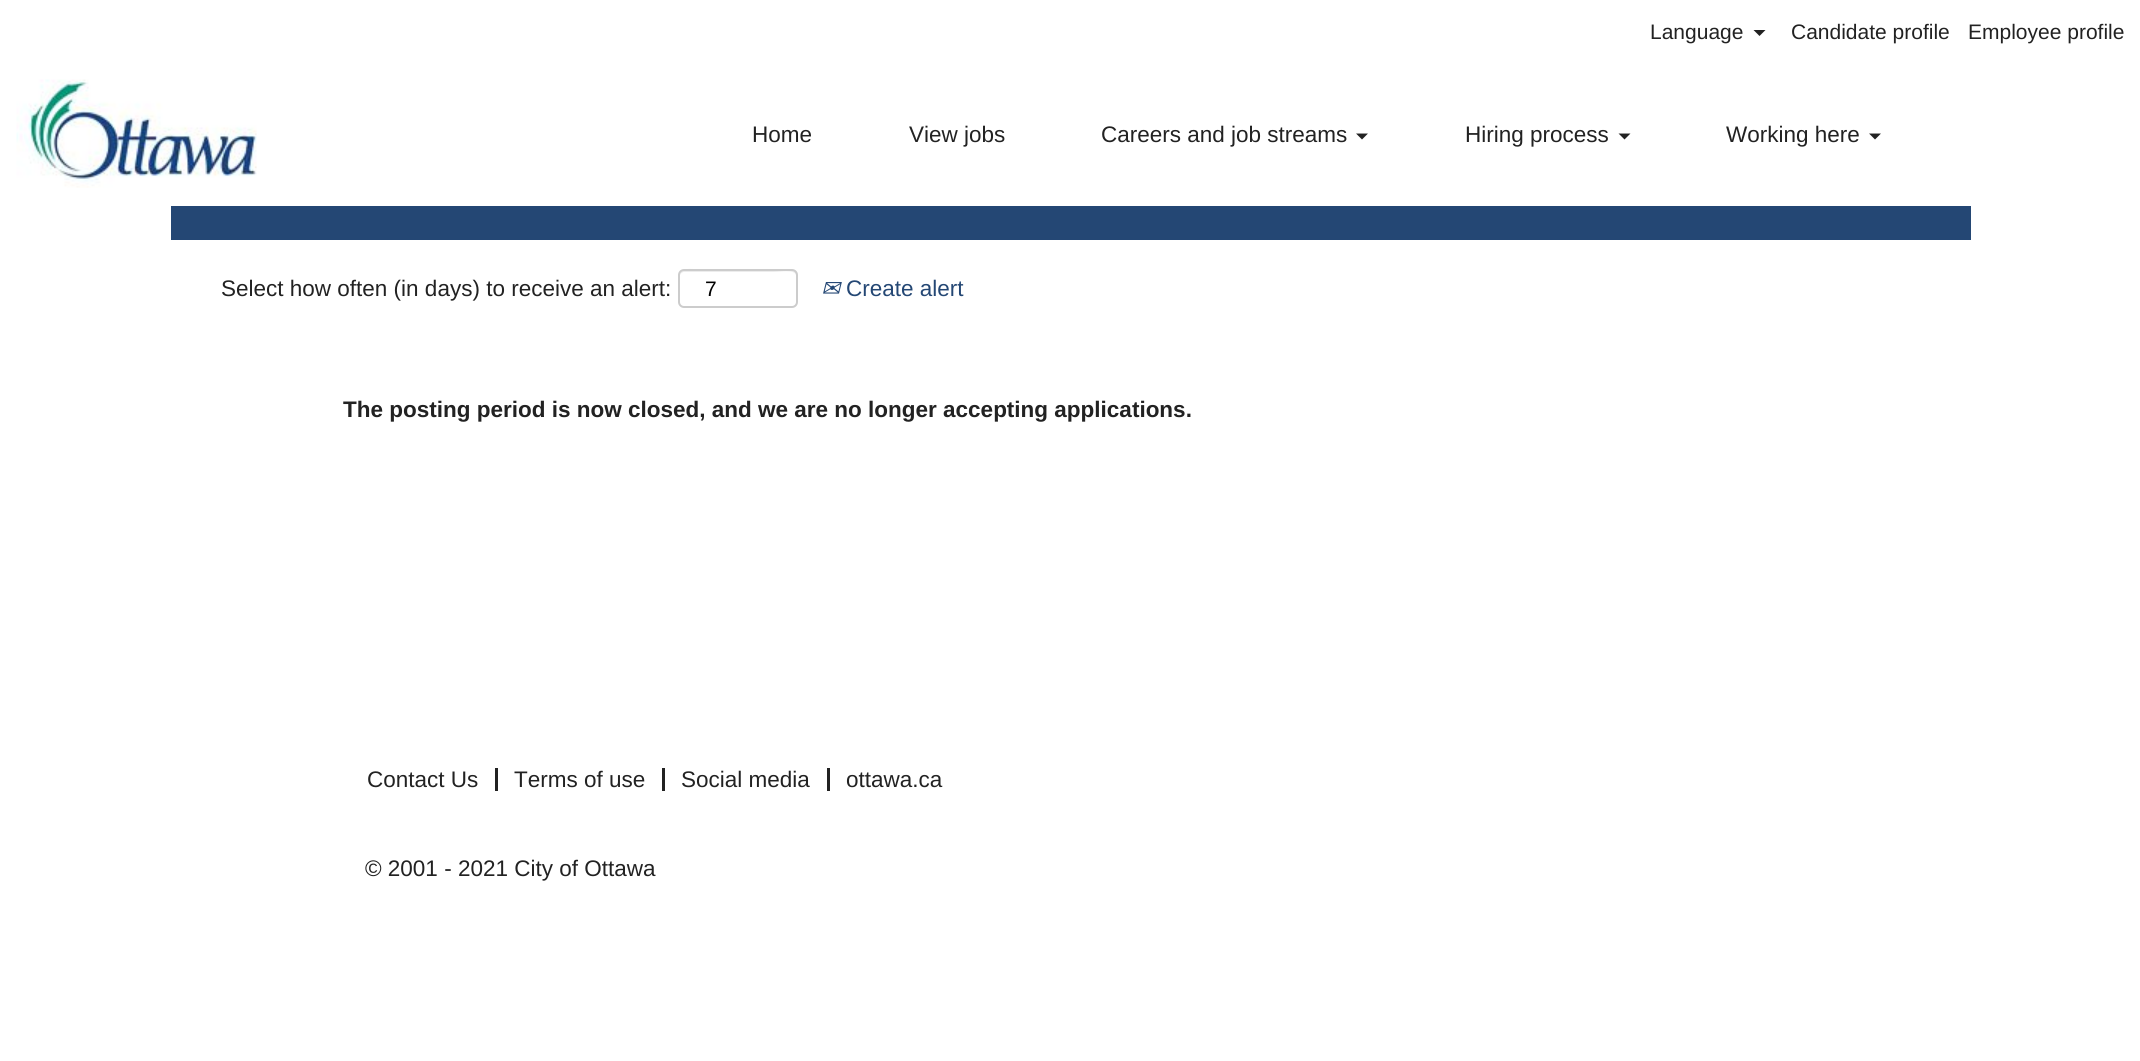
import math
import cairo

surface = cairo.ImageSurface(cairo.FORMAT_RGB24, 2140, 1061)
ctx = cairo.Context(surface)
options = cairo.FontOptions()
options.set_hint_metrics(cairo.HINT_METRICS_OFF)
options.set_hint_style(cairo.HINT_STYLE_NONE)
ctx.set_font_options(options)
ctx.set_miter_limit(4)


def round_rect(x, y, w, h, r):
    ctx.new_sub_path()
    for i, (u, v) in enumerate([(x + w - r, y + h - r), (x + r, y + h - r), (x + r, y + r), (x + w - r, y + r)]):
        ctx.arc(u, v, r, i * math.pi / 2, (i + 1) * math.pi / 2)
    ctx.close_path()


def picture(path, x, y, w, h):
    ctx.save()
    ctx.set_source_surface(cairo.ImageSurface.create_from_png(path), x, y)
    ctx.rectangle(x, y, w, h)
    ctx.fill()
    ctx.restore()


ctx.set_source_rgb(1, 1, 1)
ctx.paint()
ctx.select_font_face("Liberation Sans")
ctx.set_font_size(21)
ctx.set_source_rgb(0.133, 0.133, 0.133)
ctx.move_to(1650, 39)
ctx.show_text("Language")
ctx.new_path()
ctx.move_to(1753.5, 30)
ctx.line_to(1765.5, 30)
ctx.line_to(1759.5, 36)
ctx.close_path()
ctx.fill()
ctx.move_to(1791, 39)
ctx.show_text("Candidate profile")
ctx.move_to(1968, 39)
ctx.show_text("Employee profile")
picture("img1.png", 16, 79, 241, 109)
ctx.set_font_size(22.5)
ctx.move_to(752, 142)
ctx.show_text("Home")
ctx.move_to(909, 142)
ctx.show_text("View jobs")
ctx.move_to(1101, 142)
ctx.show_text("Careers and job streams")
ctx.new_path()
ctx.move_to(1356, 133.5)
ctx.line_to(1368, 133.5)
ctx.line_to(1362, 139.5)
ctx.close_path()
ctx.fill()
ctx.move_to(1465, 142)
ctx.show_text("Hiring process")
ctx.new_path()
ctx.move_to(1618.5, 133.5)
ctx.line_to(1630.5, 133.5)
ctx.line_to(1624.5, 139.5)
ctx.close_path()
ctx.fill()
ctx.move_to(1726, 142)
ctx.show_text("Working here")
ctx.new_path()
ctx.move_to(1869, 133.5)
ctx.line_to(1881, 133.5)
ctx.line_to(1875, 139.5)
ctx.close_path()
ctx.fill()
ctx.set_source_rgb(0.141, 0.278, 0.455)
ctx.rectangle(171, 206, 1800, 34)
ctx.fill()
ctx.set_source_rgb(0.133, 0.133, 0.133)
ctx.move_to(221, 296)
ctx.show_text("Select how often (in days) to receive an alert:")
ctx.set_source_rgb(0.925, 0.925, 0.925)
ctx.new_path()
ctx.move_to(684, 272)
ctx.line_to(774, 272)
ctx.curve_to(780, 272, 794, 269, 796, 275)
ctx.line_to(796, 304)
ctx.curve_to(798, 301, 797, 291, 797, 288)
ctx.curve_to(797, 266, 799, 270, 774, 270)
ctx.line_to(703, 270)
ctx.curve_to(698, 270, 680, 265, 680, 276)
ctx.curve_to(680, 274, 682, 272, 684, 272)
ctx.close_path()
ctx.fill()
round_rect(679, 270, 118, 37, 5)
ctx.set_source_rgb(0.8, 0.8, 0.8)
ctx.stroke()
ctx.set_font_size(21)
ctx.set_source_rgb(0, 0, 0)
ctx.move_to(705, 296)
ctx.show_text("7")
ctx.select_font_face("DejaVu Sans", cairo.FONT_SLANT_ITALIC)
ctx.set_font_size(22.5)
ctx.set_source_rgb(0.141, 0.278, 0.455)
ctx.move_to(821, 296)
ctx.show_text("✉")
ctx.select_font_face("Liberation Sans")
ctx.move_to(846, 296)
ctx.show_text("Create alert")
ctx.select_font_face("Liberation Sans", cairo.FONT_SLANT_NORMAL, cairo.FONT_WEIGHT_BOLD)
ctx.set_source_rgb(0.133, 0.133, 0.133)
ctx.move_to(343, 417)
ctx.show_text("The posting period is now closed, and we are no longer accepting applications.")
ctx.rectangle(495, 768, 3, 23)
ctx.fill()
ctx.select_font_face("Liberation Sans")
ctx.move_to(367, 787)
ctx.show_text("Contact Us")
ctx.rectangle(662, 768, 3, 23)
ctx.fill()
ctx.move_to(514, 787)
ctx.show_text("Terms of use")
ctx.rectangle(827, 768, 3, 23)
ctx.fill()
ctx.move_to(681, 787)
ctx.show_text("Social media")
ctx.move_to(846, 787)
ctx.show_text("ottawa.ca")
ctx.move_to(365, 876)
ctx.show_text("© 2001 - 2021 City of Ottawa")
surface.write_to_png("page.png")
